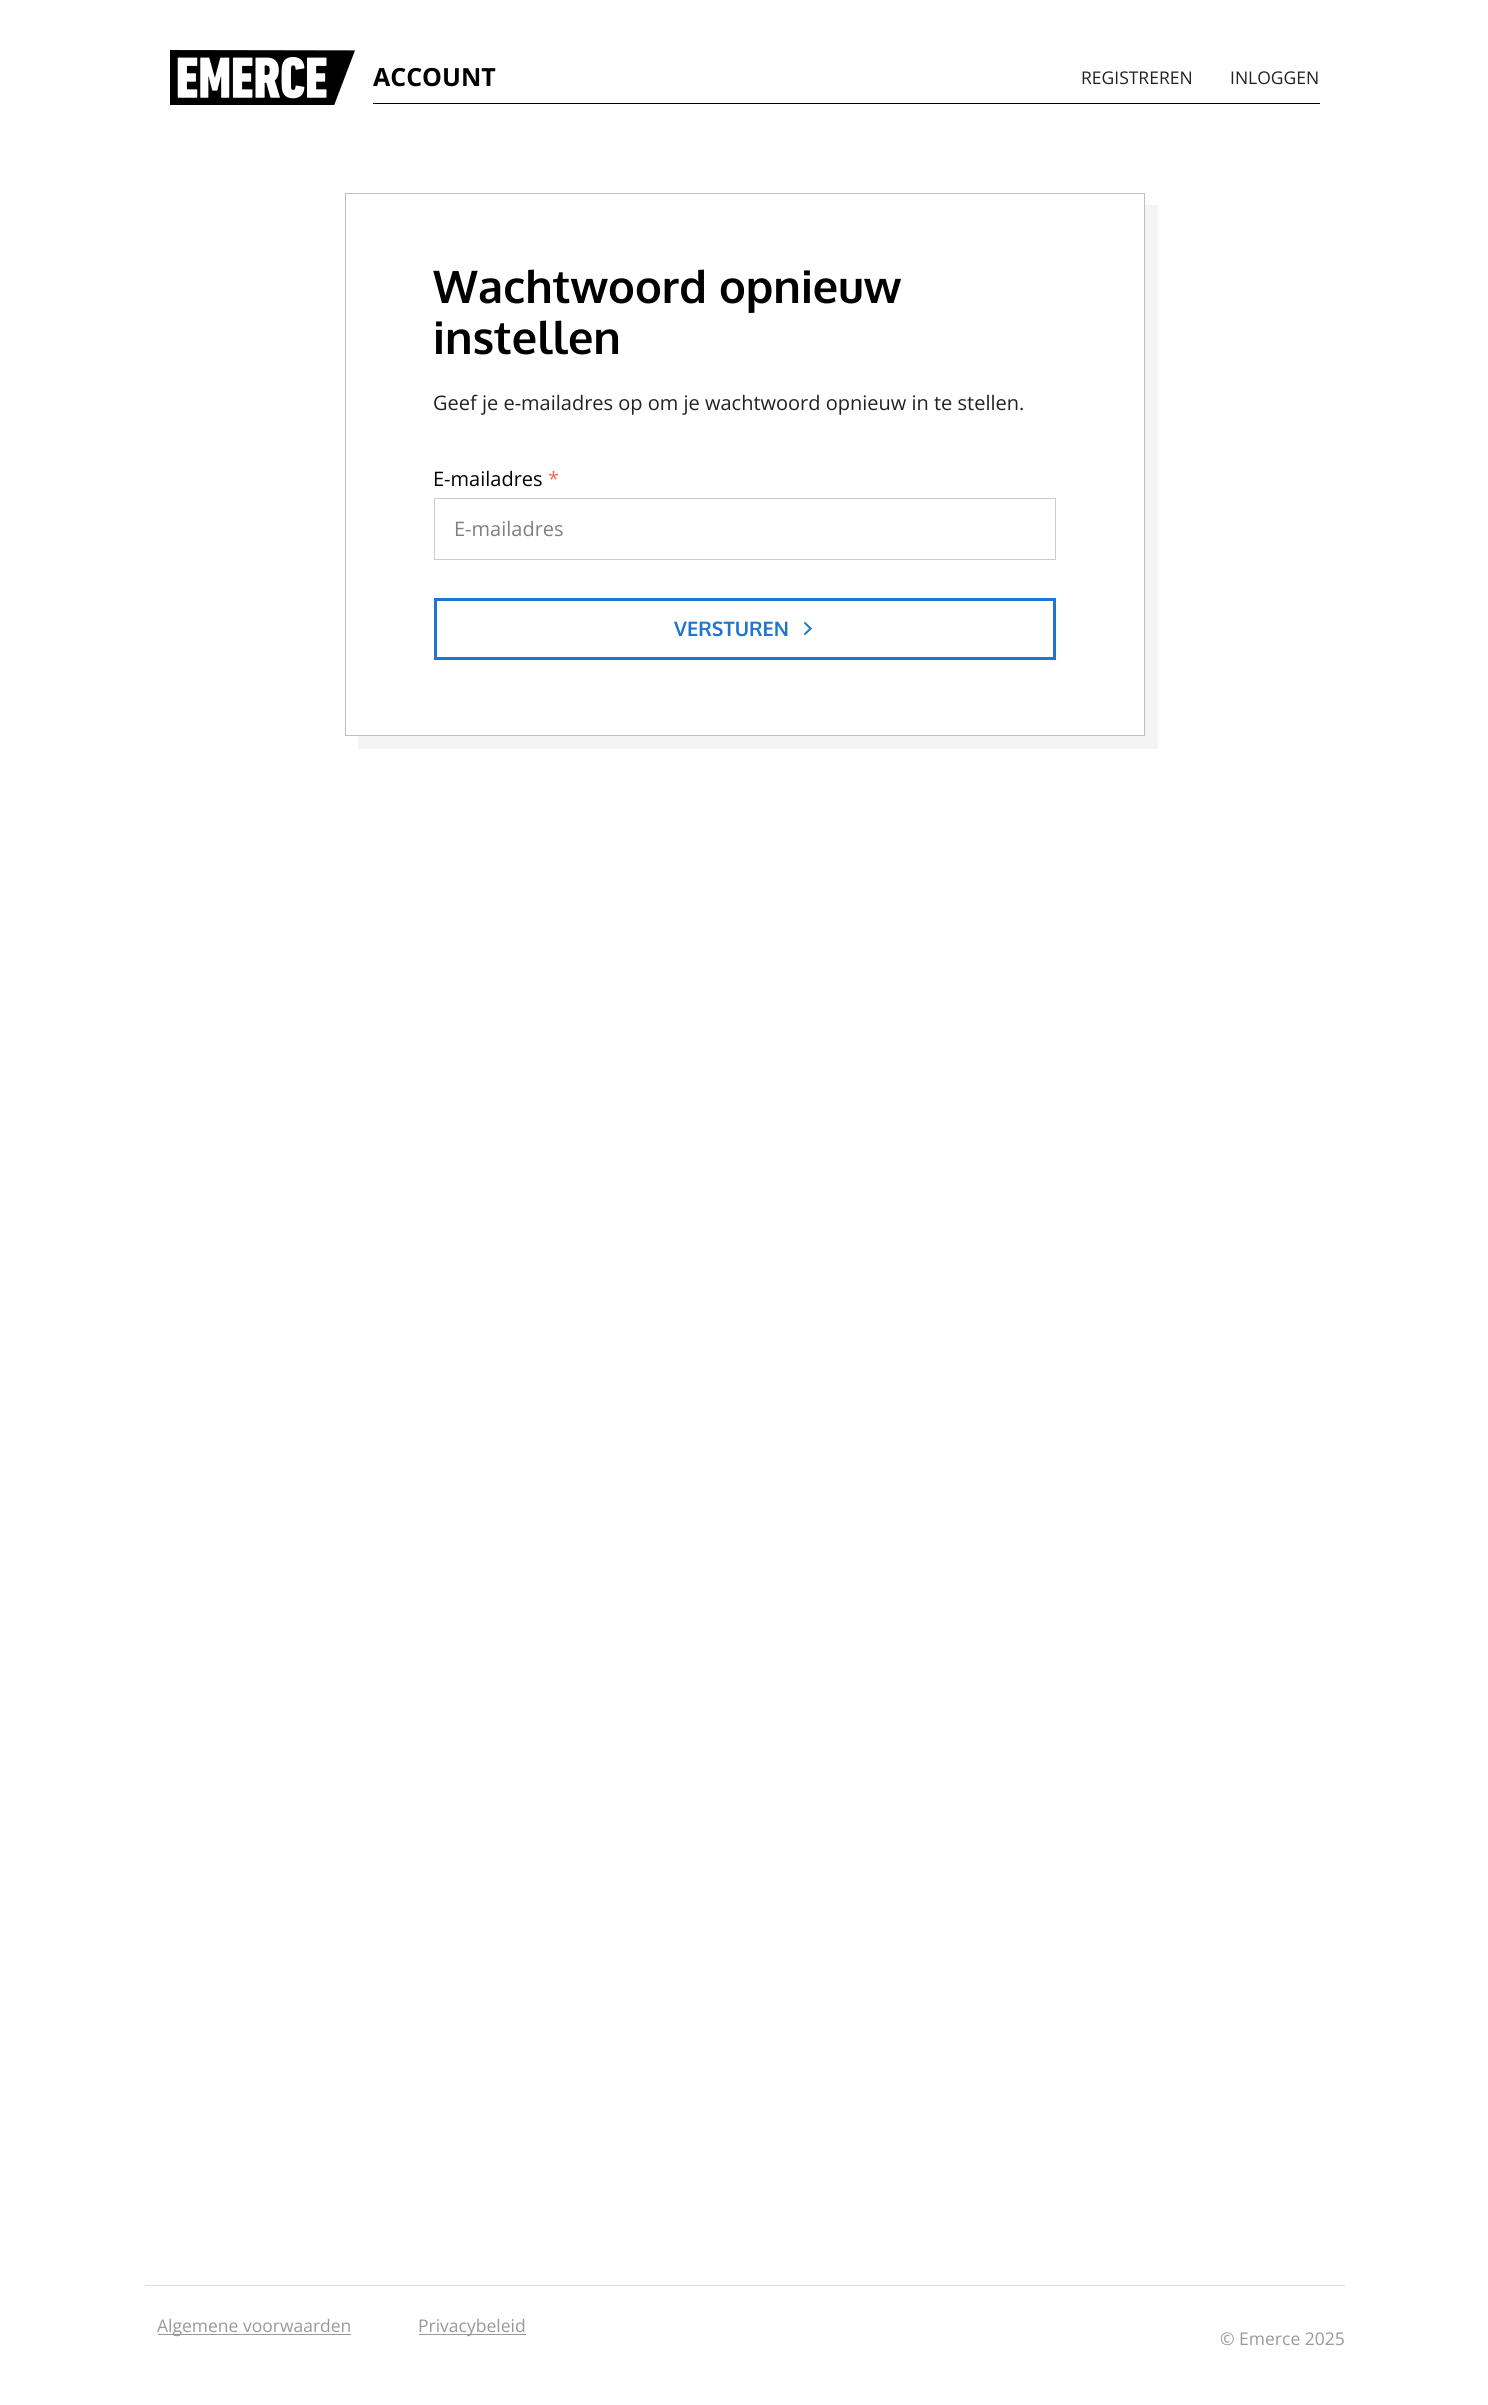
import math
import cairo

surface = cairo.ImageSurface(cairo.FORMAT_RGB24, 1488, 2405)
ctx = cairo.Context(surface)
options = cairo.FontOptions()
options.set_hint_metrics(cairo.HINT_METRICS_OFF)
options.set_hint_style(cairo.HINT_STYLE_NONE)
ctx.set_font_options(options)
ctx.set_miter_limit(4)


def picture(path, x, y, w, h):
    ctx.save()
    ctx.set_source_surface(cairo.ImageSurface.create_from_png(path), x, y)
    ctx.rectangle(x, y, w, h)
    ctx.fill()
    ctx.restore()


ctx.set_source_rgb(1, 1, 1)
ctx.paint()
picture("img1.png", 170, 50, 185, 55)
ctx.select_font_face("Open Sans", cairo.FONT_SLANT_NORMAL, cairo.FONT_WEIGHT_BOLD)
ctx.set_font_size(25)
ctx.set_source_rgb(0, 0, 0)
ctx.move_to(373, 86)
ctx.show_text("ACCOUNT")
ctx.select_font_face("Open Sans")
ctx.set_font_size(17.5)
ctx.set_source_rgb(0.133, 0.133, 0.133)
ctx.move_to(1081, 84)
ctx.show_text("REGISTREREN")
ctx.move_to(1230, 84)
ctx.show_text("INLOGGEN")
ctx.set_source_rgb(0, 0, 0)
ctx.rectangle(373, 103, 947, 1)
ctx.fill()
ctx.set_source_rgb(0.957, 0.957, 0.957)
ctx.new_path()
ctx.move_to(358, 736)
ctx.line_to(358, 749)
ctx.line_to(1158, 749)
ctx.line_to(1158, 205)
ctx.line_to(1145, 205)
ctx.line_to(1145, 736)
ctx.close_path()
ctx.fill()
ctx.rectangle(345.5, 193.5, 799, 542)
ctx.set_source_rgb(0.745, 0.745, 0.745)
ctx.set_line_width(1)
ctx.stroke()
ctx.select_font_face("Oxygen", cairo.FONT_SLANT_NORMAL, cairo.FONT_WEIGHT_BOLD)
ctx.set_font_size(45)
ctx.set_source_rgb(0, 0, 0)
ctx.move_to(433, 303)
ctx.show_text("Wachtwoord opnieuw")
ctx.move_to(433, 354)
ctx.show_text("instellen")
ctx.select_font_face("Open Sans")
ctx.set_font_size(20)
ctx.set_source_rgb(0.133, 0.133, 0.133)
ctx.move_to(433, 410)
ctx.show_text("Geef je e-mailadres op om je wachtwoord opnieuw in te stellen.")
ctx.set_source_rgb(0, 0, 0)
ctx.move_to(433, 486)
ctx.show_text("E-mailadres")
ctx.set_source_rgb(0.929, 0.404, 0.341)
ctx.move_to(548, 486)
ctx.show_text("*")
ctx.rectangle(434.5, 498.5, 621, 61)
ctx.set_source_rgb(0.8, 0.8, 0.8)
ctx.stroke()
ctx.set_source_rgb(0.502, 0.502, 0.502)
ctx.move_to(454, 536)
ctx.show_text("E-mailadres")
ctx.rectangle(435.5, 599.5, 619, 59)
ctx.set_source_rgb(0.125, 0.459, 0.808)
ctx.set_line_width(3)
ctx.stroke()
ctx.select_font_face("Oxygen", cairo.FONT_SLANT_NORMAL, cairo.FONT_WEIGHT_BOLD)
ctx.move_to(674, 636)
ctx.show_text("VERSTUREN")
picture("img2.png", 803, 621, 9, 15)
ctx.set_source_rgb(0.871, 0.871, 0.871)
ctx.rectangle(145, 2285, 1200, 1)
ctx.fill()
ctx.set_source_rgb(0.6, 0.6, 0.6)
ctx.rectangle(158, 2334, 193, 1)
ctx.fill()
ctx.select_font_face("Open Sans")
ctx.set_font_size(17.5)
ctx.move_to(157, 2332)
ctx.show_text("Algemene voorwaarden")
ctx.rectangle(419, 2334, 107, 1)
ctx.fill()
ctx.move_to(418, 2332)
ctx.show_text("Privacybeleid")
ctx.move_to(1220, 2345)
ctx.show_text("© Emerce 2025")
surface.write_to_png("page.png")
